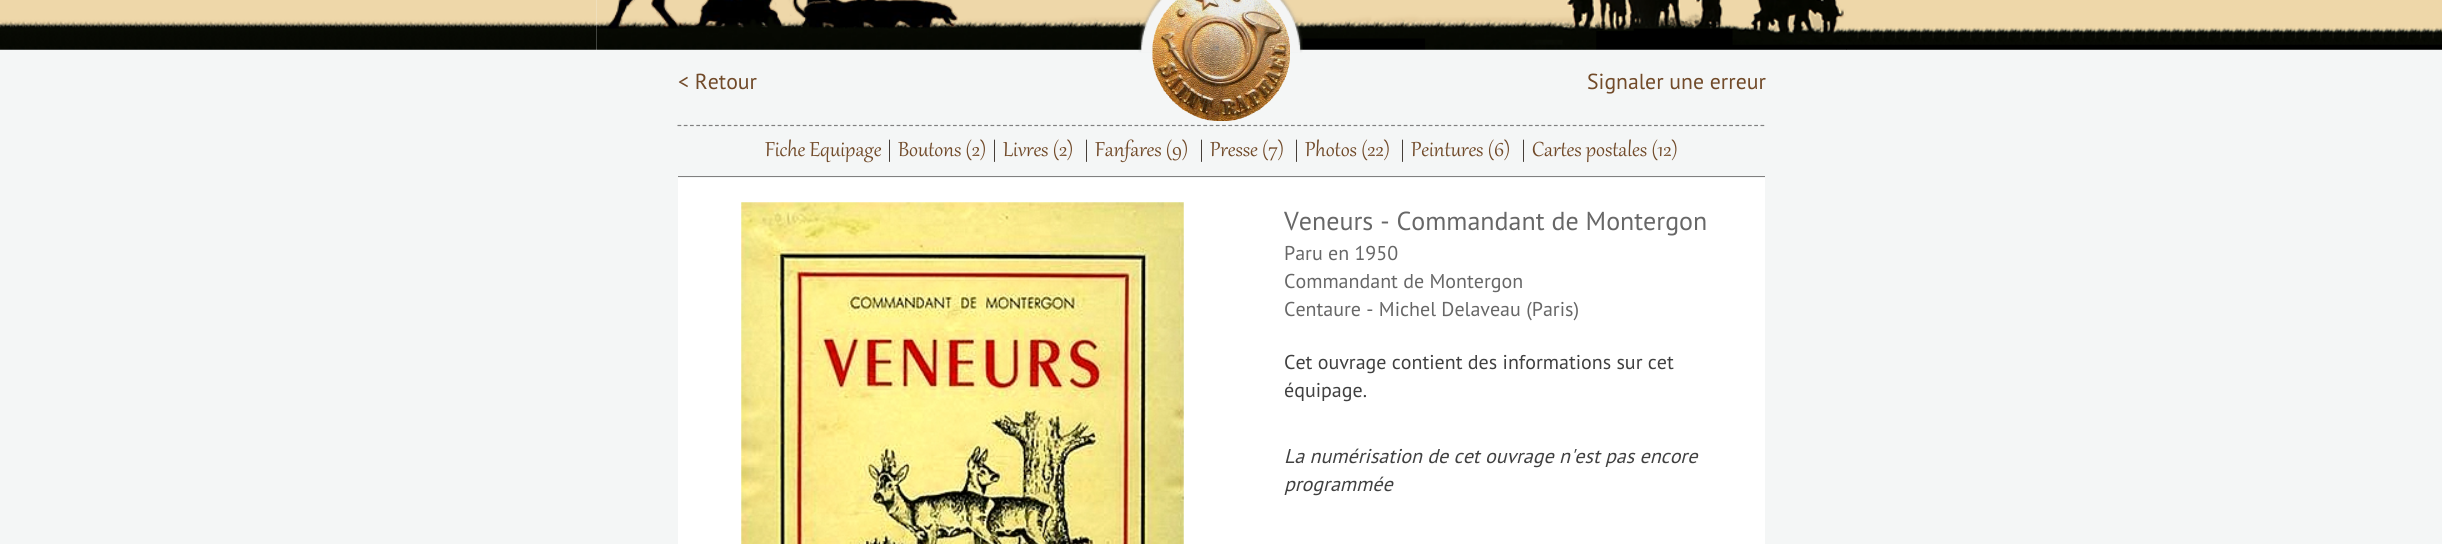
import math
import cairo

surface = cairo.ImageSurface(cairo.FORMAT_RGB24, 2442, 544)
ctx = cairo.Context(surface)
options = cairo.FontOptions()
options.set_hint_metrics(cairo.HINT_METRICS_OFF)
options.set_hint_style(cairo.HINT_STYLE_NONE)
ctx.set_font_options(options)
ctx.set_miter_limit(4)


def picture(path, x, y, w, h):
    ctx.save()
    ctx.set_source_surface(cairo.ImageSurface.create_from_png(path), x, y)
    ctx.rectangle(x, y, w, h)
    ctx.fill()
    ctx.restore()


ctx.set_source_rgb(0.957, 0.961, 0.961)
ctx.paint()
picture("img1.png", 0, 0, 596, 50)
picture("img2.png", 1846, 0, 596, 50)
picture("img3.png", 596, 0, 1251, 50)
picture("img4.png", 1138, 0, 165, 53)
picture("img6.png", 1167, 1, 120, 29)
picture("img5.png", 1152, 0, 138, 121)
ctx.select_font_face("PT Sans")
ctx.set_font_size(21.75)
ctx.set_source_rgb(0.443, 0.29, 0.161)
ctx.move_to(678, 89)
ctx.show_text("< Retour")
ctx.move_to(1587, 89)
ctx.show_text("Signaler une erreur")
ctx.new_path()
ctx.move_to(677.5, 125.5)
ctx.line_to(1765, 125.5)
ctx.set_source_rgb(0.502, 0.502, 0.502)
ctx.set_line_width(1.2)
ctx.set_dash([3.75, 2.51])
ctx.stroke()
ctx.rectangle(678, 176, 1087, 1)
ctx.fill()
ctx.select_font_face("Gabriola")
ctx.set_font_size(25)
ctx.set_source_rgb(0.443, 0.29, 0.161)
ctx.move_to(765, 156)
ctx.show_text("Fiche Equipage")
ctx.set_source_rgb(0.216, 0.188, 0.165)
ctx.move_to(886, 156)
ctx.show_text("|")
ctx.set_source_rgb(0.443, 0.29, 0.161)
ctx.move_to(898, 156)
ctx.show_text("Boutons (2)")
ctx.set_source_rgb(0.216, 0.188, 0.165)
ctx.move_to(991, 156)
ctx.show_text("|")
ctx.set_source_rgb(0.443, 0.29, 0.161)
ctx.move_to(1003, 156)
ctx.show_text("Livres (2)")
ctx.set_source_rgb(0.216, 0.188, 0.165)
ctx.move_to(1083, 156)
ctx.show_text("|")
ctx.set_source_rgb(0.443, 0.29, 0.161)
ctx.move_to(1095, 156)
ctx.show_text("Fanfares (9)")
ctx.set_source_rgb(0.216, 0.188, 0.165)
ctx.move_to(1198, 156)
ctx.show_text("|")
ctx.set_source_rgb(0.443, 0.29, 0.161)
ctx.move_to(1210, 156)
ctx.show_text("Presse (7)")
ctx.set_source_rgb(0.216, 0.188, 0.165)
ctx.move_to(1293, 156)
ctx.show_text("|")
ctx.set_source_rgb(0.443, 0.29, 0.161)
ctx.move_to(1305, 156)
ctx.show_text("Photos (22)")
ctx.set_source_rgb(0.216, 0.188, 0.165)
ctx.move_to(1399, 156)
ctx.show_text("|")
ctx.set_source_rgb(0.443, 0.29, 0.161)
ctx.move_to(1411, 156)
ctx.show_text("Peintures (6)")
ctx.set_source_rgb(0.216, 0.188, 0.165)
ctx.move_to(1520, 156)
ctx.show_text("|")
ctx.set_source_rgb(0.443, 0.29, 0.161)
ctx.move_to(1532, 156)
ctx.show_text("Cartes postales (12)")
ctx.set_source_rgb(1, 1, 1)
ctx.rectangle(678, 178, 1087, 366)
ctx.fill()
picture("img7.png", 741, 202, 443, 342)
ctx.select_font_face("PT Sans")
ctx.set_font_size(26)
ctx.set_source_rgb(0.404, 0.404, 0.404)
ctx.move_to(1284, 230)
ctx.show_text("Veneurs - Commandant de Montergon")
ctx.set_font_size(20)
ctx.move_to(1284, 260)
ctx.show_text("Paru en 1950")
ctx.move_to(1284, 288)
ctx.show_text("Commandant de Montergon")
ctx.move_to(1284, 316)
ctx.show_text("Centaure - Michel Delaveau (Paris)")
ctx.set_source_rgb(0.251, 0.251, 0.251)
ctx.move_to(1284, 369)
ctx.show_text("Cet ouvrage contient des informations sur cet")
ctx.move_to(1284, 397)
ctx.show_text("équipage.")
ctx.select_font_face("PT Sans", cairo.FONT_SLANT_ITALIC)
ctx.move_to(1284, 463)
ctx.show_text("La numérisation de cet ouvrage n'est pas encore")
ctx.move_to(1284, 491)
ctx.show_text("programmée")
surface.write_to_png("page.png")
